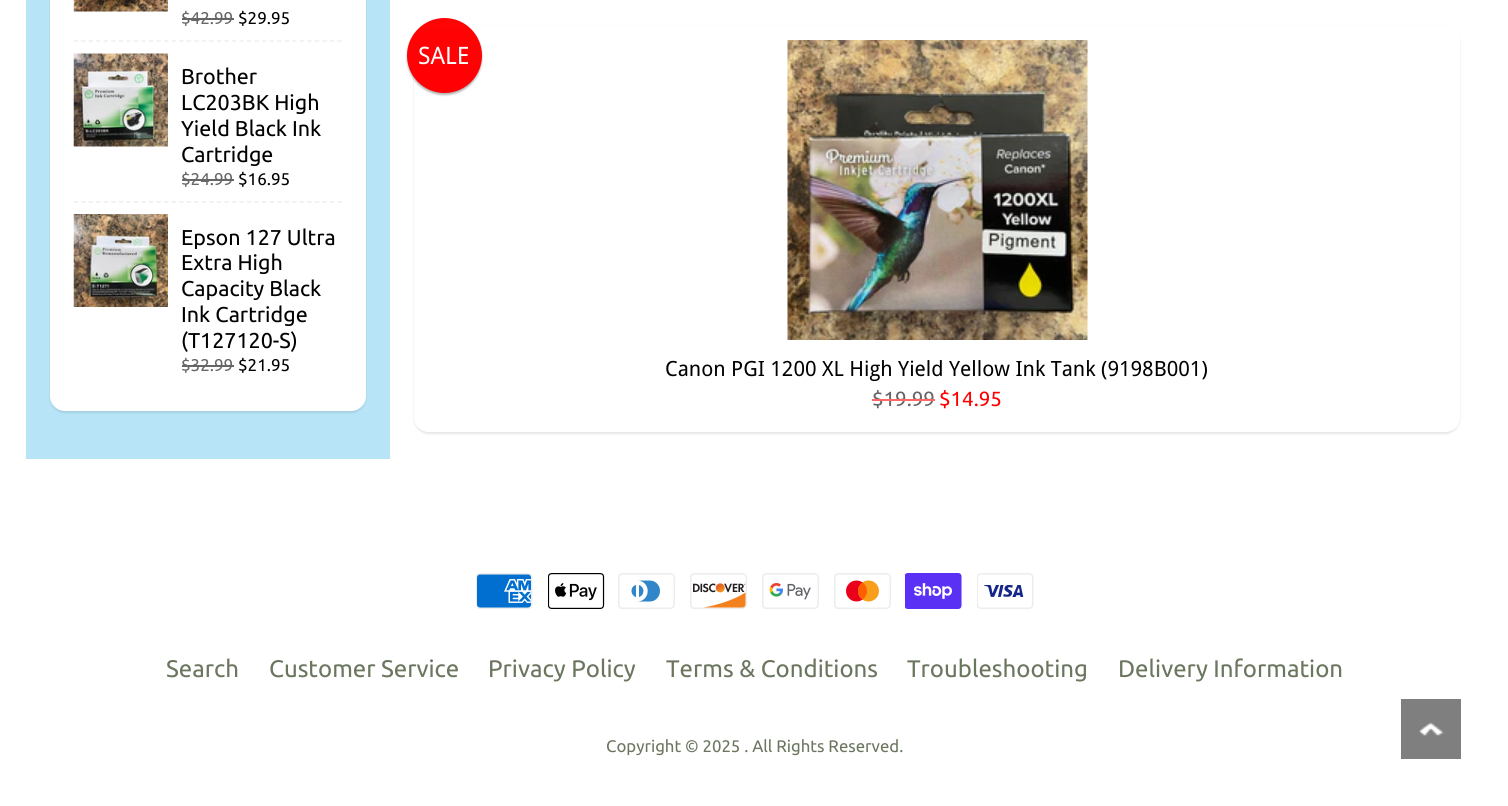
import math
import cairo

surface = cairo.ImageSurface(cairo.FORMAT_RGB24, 1508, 806)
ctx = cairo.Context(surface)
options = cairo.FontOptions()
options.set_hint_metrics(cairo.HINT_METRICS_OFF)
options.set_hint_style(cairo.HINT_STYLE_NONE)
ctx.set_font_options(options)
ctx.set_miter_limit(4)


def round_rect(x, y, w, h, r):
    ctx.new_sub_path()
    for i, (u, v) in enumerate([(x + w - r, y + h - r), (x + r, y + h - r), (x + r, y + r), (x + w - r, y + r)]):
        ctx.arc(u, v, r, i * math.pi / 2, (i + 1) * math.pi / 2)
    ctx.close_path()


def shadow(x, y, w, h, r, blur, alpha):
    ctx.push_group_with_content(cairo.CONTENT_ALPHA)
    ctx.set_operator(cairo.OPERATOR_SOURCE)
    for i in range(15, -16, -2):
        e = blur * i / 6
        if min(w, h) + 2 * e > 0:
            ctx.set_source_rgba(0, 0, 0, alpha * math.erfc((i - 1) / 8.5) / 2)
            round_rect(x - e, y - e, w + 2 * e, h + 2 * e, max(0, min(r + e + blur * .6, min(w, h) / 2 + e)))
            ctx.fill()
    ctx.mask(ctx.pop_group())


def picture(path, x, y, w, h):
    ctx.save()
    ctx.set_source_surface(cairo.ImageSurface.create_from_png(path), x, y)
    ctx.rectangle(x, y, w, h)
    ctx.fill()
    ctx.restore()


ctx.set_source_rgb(1, 1, 1)
ctx.paint()
ctx.set_source_rgb(0.718, 0.898, 0.965)
ctx.rectangle(26, 0, 364, 459)
ctx.fill()
ctx.set_source_rgb(0, 0, 0)
shadow(50, -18, 316, 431, 15, 1, 0.1)
ctx.set_source_rgb(1, 1, 1)
round_rect(50, -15, 316, 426, 15)
ctx.fill()
picture("img1.png", 73, 0, 95, 12)
ctx.select_font_face("Ubuntu")
ctx.set_font_size(17)
ctx.set_source_rgb(0.4, 0.4, 0.4)
ctx.move_to(181, 24)
ctx.show_text("$42.99")
ctx.rectangle(182, 18, 52, 2)
ctx.fill()
ctx.set_source_rgb(0, 0, 0)
ctx.move_to(238, 24)
ctx.show_text("$29.95")
ctx.new_path()
ctx.move_to(73.5, 41)
ctx.line_to(342, 41)
ctx.set_source_rgb(0.933, 0.933, 0.933)
ctx.set_line_width(1.5)
ctx.set_dash([4.5, 3.04])
ctx.stroke()
picture("img2.png", 73, 53, 95, 94)
ctx.set_font_size(21.5)
ctx.set_source_rgb(0, 0, 0)
ctx.move_to(181, 84)
ctx.show_text("Brother")
ctx.move_to(181, 110)
ctx.show_text("LC203BK High")
ctx.move_to(181, 136)
ctx.show_text("Yield Black Ink")
ctx.move_to(181, 162)
ctx.show_text("Cartridge")
ctx.set_font_size(17)
ctx.set_source_rgb(0.4, 0.4, 0.4)
ctx.move_to(181, 185)
ctx.show_text("$24.99")
ctx.rectangle(182, 179, 52, 2)
ctx.fill()
ctx.set_source_rgb(0, 0, 0)
ctx.move_to(238, 185)
ctx.show_text("$16.95")
ctx.new_path()
ctx.move_to(73.5, 202)
ctx.line_to(342, 202)
ctx.set_source_rgb(0.933, 0.933, 0.933)
ctx.stroke()
picture("img3.png", 73, 214, 95, 93)
ctx.set_font_size(21.5)
ctx.set_source_rgb(0, 0, 0)
ctx.move_to(181, 245)
ctx.show_text("Epson 127 Ultra")
ctx.move_to(181, 270)
ctx.show_text("Extra High")
ctx.move_to(181, 296)
ctx.show_text("Capacity Black")
ctx.move_to(181, 322)
ctx.show_text("Ink Cartridge")
ctx.move_to(181, 348)
ctx.show_text("(T127120-S)")
ctx.set_font_size(17)
ctx.set_source_rgb(0.4, 0.4, 0.4)
ctx.move_to(181, 371)
ctx.show_text("$32.99")
ctx.rectangle(182, 365, 52, 2)
ctx.fill()
ctx.set_source_rgb(0, 0, 0)
ctx.move_to(238, 371)
ctx.show_text("$21.95")
ctx.save()
ctx.set_fill_rule(cairo.FILL_RULE_EVEN_ODD)
ctx.new_path()
ctx.move_to(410, 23)
ctx.line_to(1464, 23)
ctx.line_to(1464, 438)
ctx.line_to(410, 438)
ctx.close_path()
ctx.move_to(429, 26)
ctx.line_to(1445, 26)
ctx.curve_to(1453.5, 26, 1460, 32.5, 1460, 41)
ctx.line_to(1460, 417)
ctx.curve_to(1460, 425.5, 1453.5, 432, 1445, 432)
ctx.line_to(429, 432)
ctx.curve_to(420.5, 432, 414, 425.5, 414, 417)
ctx.line_to(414, 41)
ctx.curve_to(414, 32.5, 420.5, 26, 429, 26)
ctx.close_path()
ctx.clip()
ctx.set_source_rgb(0, 0, 0)
shadow(414, 27, 1046, 407, 15, 1, 0.1)
ctx.restore()
ctx.set_source_rgb(0, 0, 0)
shadow(407, 20, 75, 75, 37.5, 1, 0.3)
gradient = cairo.LinearGradient(444, 18, 444, 93)
gradient.add_color_stop_rgba(0, 1, 0.016, 0.016, 1)
gradient.add_color_stop_rgba(1, 1, 0, 0.02, 1)
ctx.set_source(gradient)
ctx.arc(444.5, 55.5, 37.5, 0, 2 * math.pi)
ctx.fill()
ctx.select_font_face("Droid Sans")
ctx.set_font_size(24)
ctx.set_source_rgb(1, 1, 1)
ctx.move_to(418, 64)
ctx.show_text("SALE")
picture("img4.png", 787, 40, 301, 300)
ctx.set_font_size(21)
ctx.set_source_rgb(0, 0, 0)
ctx.move_to(665, 376)
ctx.show_text("Canon PGI 1200 XL High Yield Yellow Ink Tank (9198B001)")
ctx.select_font_face("Ubuntu")
ctx.set_font_size(20.5)
ctx.set_source_rgb(0.4, 0.4, 0.4)
ctx.move_to(872, 406)
ctx.show_text("$19.99")
ctx.set_source_rgb(1, 0.4, 0.4)
ctx.rectangle(872, 399, 63, 2)
ctx.fill()
ctx.set_source_rgb(1, 0, 0)
ctx.move_to(939, 406)
ctx.show_text("$14.95")
picture("img5.png", 476, 573, 57, 36)
picture("img6.png", 548, 573, 57, 36)
picture("img7.png", 618, 573, 57, 36)
picture("img8.png", 690, 573, 57, 36)
picture("img9.png", 762, 573, 57, 36)
picture("img10.png", 834, 573, 57, 36)
picture("img11.png", 905, 573, 57, 36)
picture("img12.png", 977, 573, 57, 36)
ctx.set_font_size(24)
ctx.set_source_rgb(0.42, 0.463, 0.373)
ctx.move_to(166, 677)
ctx.show_text("Search")
ctx.move_to(269, 677)
ctx.show_text("Customer Service")
ctx.move_to(488, 677)
ctx.show_text("Privacy Policy")
ctx.move_to(666, 677)
ctx.show_text("Terms & Conditions")
ctx.move_to(907, 677)
ctx.show_text("Troubleshooting")
ctx.move_to(1118, 677)
ctx.show_text("Delivery Information")
ctx.set_font_size(16.75)
ctx.move_to(606, 752)
ctx.show_text("Copyright © 2025 . All Rights Reserved.")
picture("img13.png", 1401, 699, 60, 60)
surface.write_to_png("page.png")
